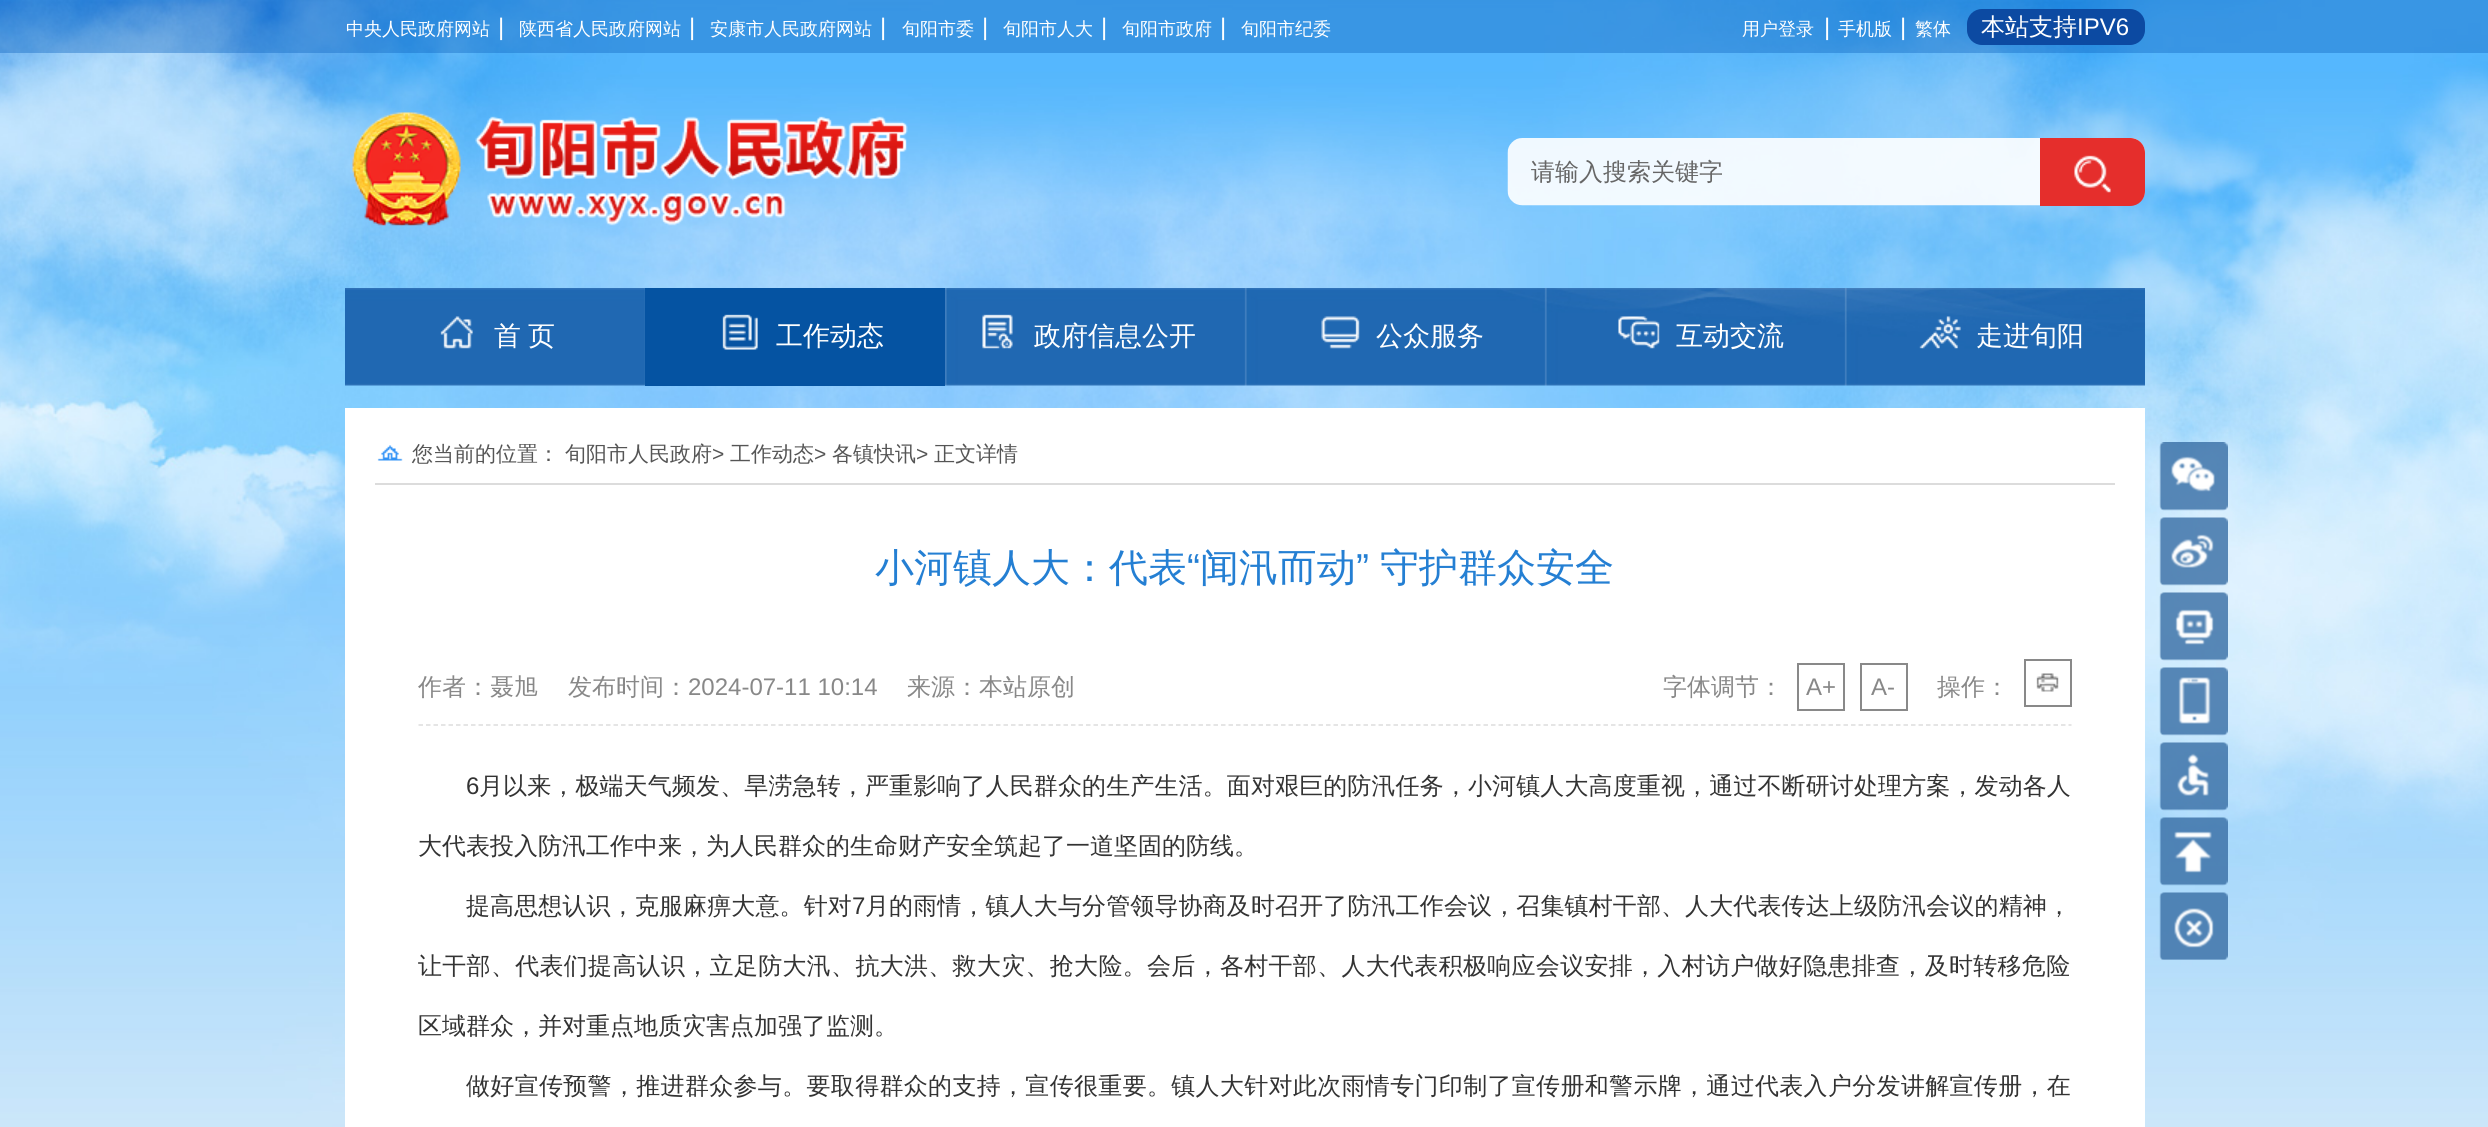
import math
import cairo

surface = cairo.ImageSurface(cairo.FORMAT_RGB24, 2488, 1127)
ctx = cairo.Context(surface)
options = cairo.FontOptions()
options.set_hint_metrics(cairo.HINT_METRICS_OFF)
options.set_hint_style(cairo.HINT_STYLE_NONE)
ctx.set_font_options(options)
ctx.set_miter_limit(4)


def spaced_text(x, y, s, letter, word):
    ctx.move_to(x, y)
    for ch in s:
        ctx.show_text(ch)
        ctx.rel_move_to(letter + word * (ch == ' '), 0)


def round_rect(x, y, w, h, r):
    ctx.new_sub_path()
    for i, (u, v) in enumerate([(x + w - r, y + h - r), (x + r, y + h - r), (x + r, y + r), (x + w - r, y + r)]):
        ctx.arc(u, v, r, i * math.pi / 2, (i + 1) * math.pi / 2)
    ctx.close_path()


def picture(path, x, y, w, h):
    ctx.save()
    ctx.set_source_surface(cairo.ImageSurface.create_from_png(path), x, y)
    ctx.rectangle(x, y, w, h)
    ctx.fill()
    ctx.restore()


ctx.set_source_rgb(1, 1, 1)
ctx.paint()
picture("img1.png", 0, 0, 2488, 1127)
ctx.set_source_rgba(0.059, 0.392, 0.745, 0.4)
ctx.rectangle(0, 0, 2488, 53)
ctx.fill()
ctx.select_font_face("WenQuanYi Zen Hei Medium")
ctx.set_font_size(18)
ctx.set_source_rgb(1, 1, 1)
ctx.move_to(346, 35)
ctx.show_text("中央人民政府网站")
ctx.select_font_face("Liberation Sans")
ctx.set_font_size(24)
ctx.move_to(498, 35)
ctx.show_text("|")
ctx.select_font_face("WenQuanYi Zen Hei Medium")
ctx.set_font_size(18)
ctx.move_to(519, 35)
ctx.show_text("陕西省人民政府网站")
ctx.select_font_face("Liberation Sans")
ctx.set_font_size(24)
ctx.move_to(689, 35)
ctx.show_text("|")
ctx.select_font_face("WenQuanYi Zen Hei Medium")
ctx.set_font_size(18)
ctx.move_to(710, 35)
ctx.show_text("安康市人民政府网站")
ctx.select_font_face("Liberation Sans")
ctx.set_font_size(24)
ctx.move_to(880, 35)
ctx.show_text("|")
ctx.select_font_face("WenQuanYi Zen Hei Medium")
ctx.set_font_size(18)
ctx.move_to(902, 35)
ctx.show_text("旬阳市委")
ctx.select_font_face("Liberation Sans")
ctx.set_font_size(24)
ctx.move_to(982, 35)
ctx.show_text("|")
ctx.select_font_face("WenQuanYi Zen Hei Medium")
ctx.set_font_size(18)
ctx.move_to(1003, 35)
ctx.show_text("旬阳市人大")
ctx.select_font_face("Liberation Sans")
ctx.set_font_size(24)
ctx.move_to(1101, 35)
ctx.show_text("|")
ctx.select_font_face("WenQuanYi Zen Hei Medium")
ctx.set_font_size(18)
ctx.move_to(1122, 35)
ctx.show_text("旬阳市政府")
ctx.select_font_face("Liberation Sans")
ctx.set_font_size(24)
ctx.move_to(1220, 35)
ctx.show_text("|")
ctx.select_font_face("WenQuanYi Zen Hei Medium")
ctx.set_font_size(18)
ctx.move_to(1241, 35)
ctx.show_text("旬阳市纪委")
ctx.move_to(1742, 35)
ctx.show_text("用户登录")
ctx.select_font_face("Liberation Sans")
ctx.set_font_size(24)
ctx.move_to(1824, 35)
ctx.show_text("|")
ctx.select_font_face("WenQuanYi Zen Hei Medium")
ctx.set_font_size(18)
ctx.move_to(1838, 35)
ctx.show_text("手机版")
ctx.select_font_face("Liberation Sans")
ctx.set_font_size(24)
ctx.move_to(1900, 35)
ctx.show_text("|")
ctx.select_font_face("WenQuanYi Zen Hei Medium")
ctx.set_font_size(18)
ctx.move_to(1915, 35)
ctx.show_text("繁体")
ctx.set_source_rgb(0.047, 0.29, 0.635)
round_rect(1967, 9, 178, 36, 15)
ctx.fill()
ctx.set_font_size(24)
ctx.set_source_rgb(1, 1, 1)
ctx.move_to(1981, 35)
ctx.show_text("本站支持")
ctx.select_font_face("Liberation Sans")
ctx.move_to(2077, 35)
ctx.show_text("IPV6")
picture("img2.png", 352, 112, 556, 114)
picture("img3.png", 1507, 138, 638, 68)
ctx.select_font_face("WenQuanYi Zen Hei Medium")
ctx.set_source_rgb(0.4, 0.4, 0.4)
ctx.move_to(1531, 180)
ctx.show_text("请输入搜索关键字")
ctx.set_source_rgb(0.898, 0.18, 0.173)
ctx.new_path()
ctx.move_to(2040, 138)
ctx.line_to(2130, 138)
ctx.curve_to(2138.5, 138, 2145, 144.5, 2145, 153)
ctx.line_to(2145, 191)
ctx.curve_to(2145, 199.5, 2138.5, 206, 2130, 206)
ctx.line_to(2040, 206)
ctx.close_path()
ctx.fill()
picture("img4.png", 2074, 155, 37, 38)
picture("img5.png", 345, 288, 1800, 98)
picture("img6.png", 440, 316, 33, 33)
ctx.set_font_size(27)
ctx.set_source_rgb(1, 1, 1)
spaced_text(494, 345, "首 页", 0, -1)
ctx.set_source_rgb(0.02, 0.325, 0.635)
ctx.rectangle(645, 288, 300, 98)
ctx.fill()
picture("img7.png", 722, 314, 36, 36)
ctx.set_source_rgb(1, 1, 1)
ctx.move_to(776, 345)
ctx.show_text("工作动态")
picture("img8.png", 982, 314, 31, 35)
ctx.move_to(1034, 345)
ctx.show_text("政府信息公开")
picture("img9.png", 1321, 316, 39, 33)
ctx.move_to(1376, 345)
ctx.show_text("公众服务")
picture("img10.png", 1618, 316, 42, 33)
ctx.move_to(1676, 345)
ctx.show_text("互动交流")
picture("img11.png", 1919, 316, 42, 33)
ctx.move_to(1976, 345)
ctx.show_text("走进旬阳")
ctx.rectangle(345, 408, 1800, 719)
ctx.fill()
picture("img12.png", 377, 445, 26, 16)
ctx.set_source_rgb(0.863, 0.863, 0.863)
ctx.rectangle(375, 483, 1740, 2)
ctx.fill()
ctx.set_font_size(21)
ctx.set_source_rgb(0.333, 0.333, 0.333)
ctx.move_to(412, 461)
ctx.show_text("您当前的位置：")
ctx.move_to(565, 461)
ctx.show_text("旬阳市人民政府")
ctx.select_font_face("Liberation Sans")
ctx.move_to(712, 461)
ctx.show_text(">")
ctx.select_font_face("WenQuanYi Zen Hei Medium")
ctx.move_to(730, 461)
ctx.show_text("工作动态")
ctx.select_font_face("Liberation Sans")
ctx.move_to(814, 461)
ctx.show_text(">")
ctx.select_font_face("WenQuanYi Zen Hei Medium")
ctx.move_to(832, 461)
ctx.show_text("各镇快讯")
ctx.select_font_face("Liberation Sans")
ctx.move_to(916, 461)
ctx.show_text(">")
ctx.select_font_face("WenQuanYi Zen Hei Medium")
ctx.move_to(934, 461)
ctx.show_text("正文详情")
ctx.set_font_size(39)
ctx.set_source_rgb(0.141, 0.498, 0.827)
ctx.move_to(875, 581)
ctx.show_text("小河镇人大：代表")
ctx.select_font_face("Liberation Sans")
ctx.move_to(1187, 581)
ctx.show_text("“")
ctx.select_font_face("WenQuanYi Zen Hei Medium")
ctx.move_to(1200, 581)
ctx.show_text("闻汛而动")
ctx.select_font_face("Liberation Sans")
ctx.move_to(1356, 581)
ctx.show_text("”")
ctx.select_font_face("WenQuanYi Zen Hei Medium")
ctx.move_to(1380, 581)
ctx.show_text("守护群众安全")
ctx.new_path()
ctx.move_to(418.5, 725)
ctx.line_to(2071.5, 725)
ctx.set_source_rgb(0.863, 0.863, 0.863)
ctx.set_line_width(1.5)
ctx.set_dash([4.5, 3])
ctx.stroke()
ctx.set_font_size(24)
ctx.set_source_rgb(0.533, 0.533, 0.533)
ctx.move_to(418, 695)
ctx.show_text("作者：聂旭")
ctx.move_to(568, 695)
ctx.show_text("发布时间：")
ctx.select_font_face("Liberation Sans")
ctx.move_to(688, 695)
ctx.show_text("2024-07-11 10:14")
ctx.select_font_face("WenQuanYi Zen Hei Medium")
ctx.move_to(907, 695)
ctx.show_text("来源：本站原创")
ctx.move_to(1663, 695)
ctx.show_text("字体调节：")
ctx.rectangle(1798, 664, 46, 46)
ctx.set_source_rgb(0.537, 0.537, 0.537)
ctx.set_line_width(2)
ctx.set_dash([])
ctx.stroke()
ctx.select_font_face("Liberation Sans")
ctx.set_source_rgb(0.533, 0.533, 0.533)
ctx.move_to(1806, 695)
ctx.show_text("A+")
ctx.rectangle(1861, 664, 46, 46)
ctx.set_source_rgb(0.537, 0.537, 0.537)
ctx.stroke()
ctx.set_source_rgb(0.533, 0.533, 0.533)
ctx.move_to(1871, 695)
ctx.show_text("A-")
ctx.select_font_face("WenQuanYi Zen Hei Medium")
ctx.move_to(1937, 695)
ctx.show_text("操作：")
ctx.rectangle(2025, 660, 46, 46)
ctx.set_source_rgb(0.537, 0.537, 0.537)
ctx.stroke()
picture("img13.png", 2036, 673, 23, 19)
ctx.select_font_face("Liberation Sans")
ctx.set_source_rgb(0.2, 0.2, 0.2)
spaced_text(466, 794, "6", 0.12, 0)
ctx.select_font_face("WenQuanYi Zen Hei Medium")
spaced_text(479, 794, "月以来，极端天气频发、旱涝急转，严重影响了人民群众的生产生活。面对艰巨的防汛任务，小河镇人大高度重视，通过不断研讨处理方案，发动各人", 0.12, 0)
ctx.move_to(418, 854)
ctx.show_text("大代表投入防汛工作中来，为人民群众的生命财产安全筑起了一道坚固的防线。")
spaced_text(466, 914, "提高思想认识，克服麻痹大意。针对", 0.12, 0)
ctx.select_font_face("Liberation Sans")
spaced_text(852, 914, "7", 0.12, 0)
ctx.select_font_face("WenQuanYi Zen Hei Medium")
spaced_text(865, 914, "月的雨情，镇人大与分管领导协商及时召开了防汛工作会议，召集镇村干部、人大代表传达上级防汛会议的精神，", 0.12, 0)
spaced_text(418, 974, "让干部、代表们提高认识，立足防大汛、抗大洪、救大灾、抢大险。会后，各村干部、人大代表积极响应会议安排，入村访户做好隐患排查，及时转移危险", 0.3, 0)
ctx.move_to(418, 1034)
ctx.show_text("区域群众，并对重点地质灾害点加强了监测。")
spaced_text(466, 1094, "做好宣传预警，推进群众参与。要取得群众的支持，宣传很重要。镇人大针对此次雨情专门印制了宣传册和警示牌，通过代表入户分发讲解宣传册，在", 0.32, 0)
picture("img14.png", 2159, 442, 69, 69)
picture("img15.png", 2171, 456, 44, 36)
picture("img16.png", 2159, 517, 69, 69)
picture("img17.png", 2171, 534, 43, 34)
picture("img18.png", 2159, 592, 69, 69)
picture("img19.png", 2175, 609, 39, 36)
picture("img20.png", 2159, 667, 69, 69)
picture("img21.png", 2178, 677, 33, 47)
picture("img22.png", 2159, 742, 69, 69)
picture("img23.png", 2177, 753, 32, 43)
picture("img24.png", 2159, 817, 69, 69)
picture("img25.png", 2174, 831, 38, 42)
picture("img26.png", 2159, 892, 69, 68)
picture("img27.png", 2174, 908, 40, 40)
surface.write_to_png("page.png")
